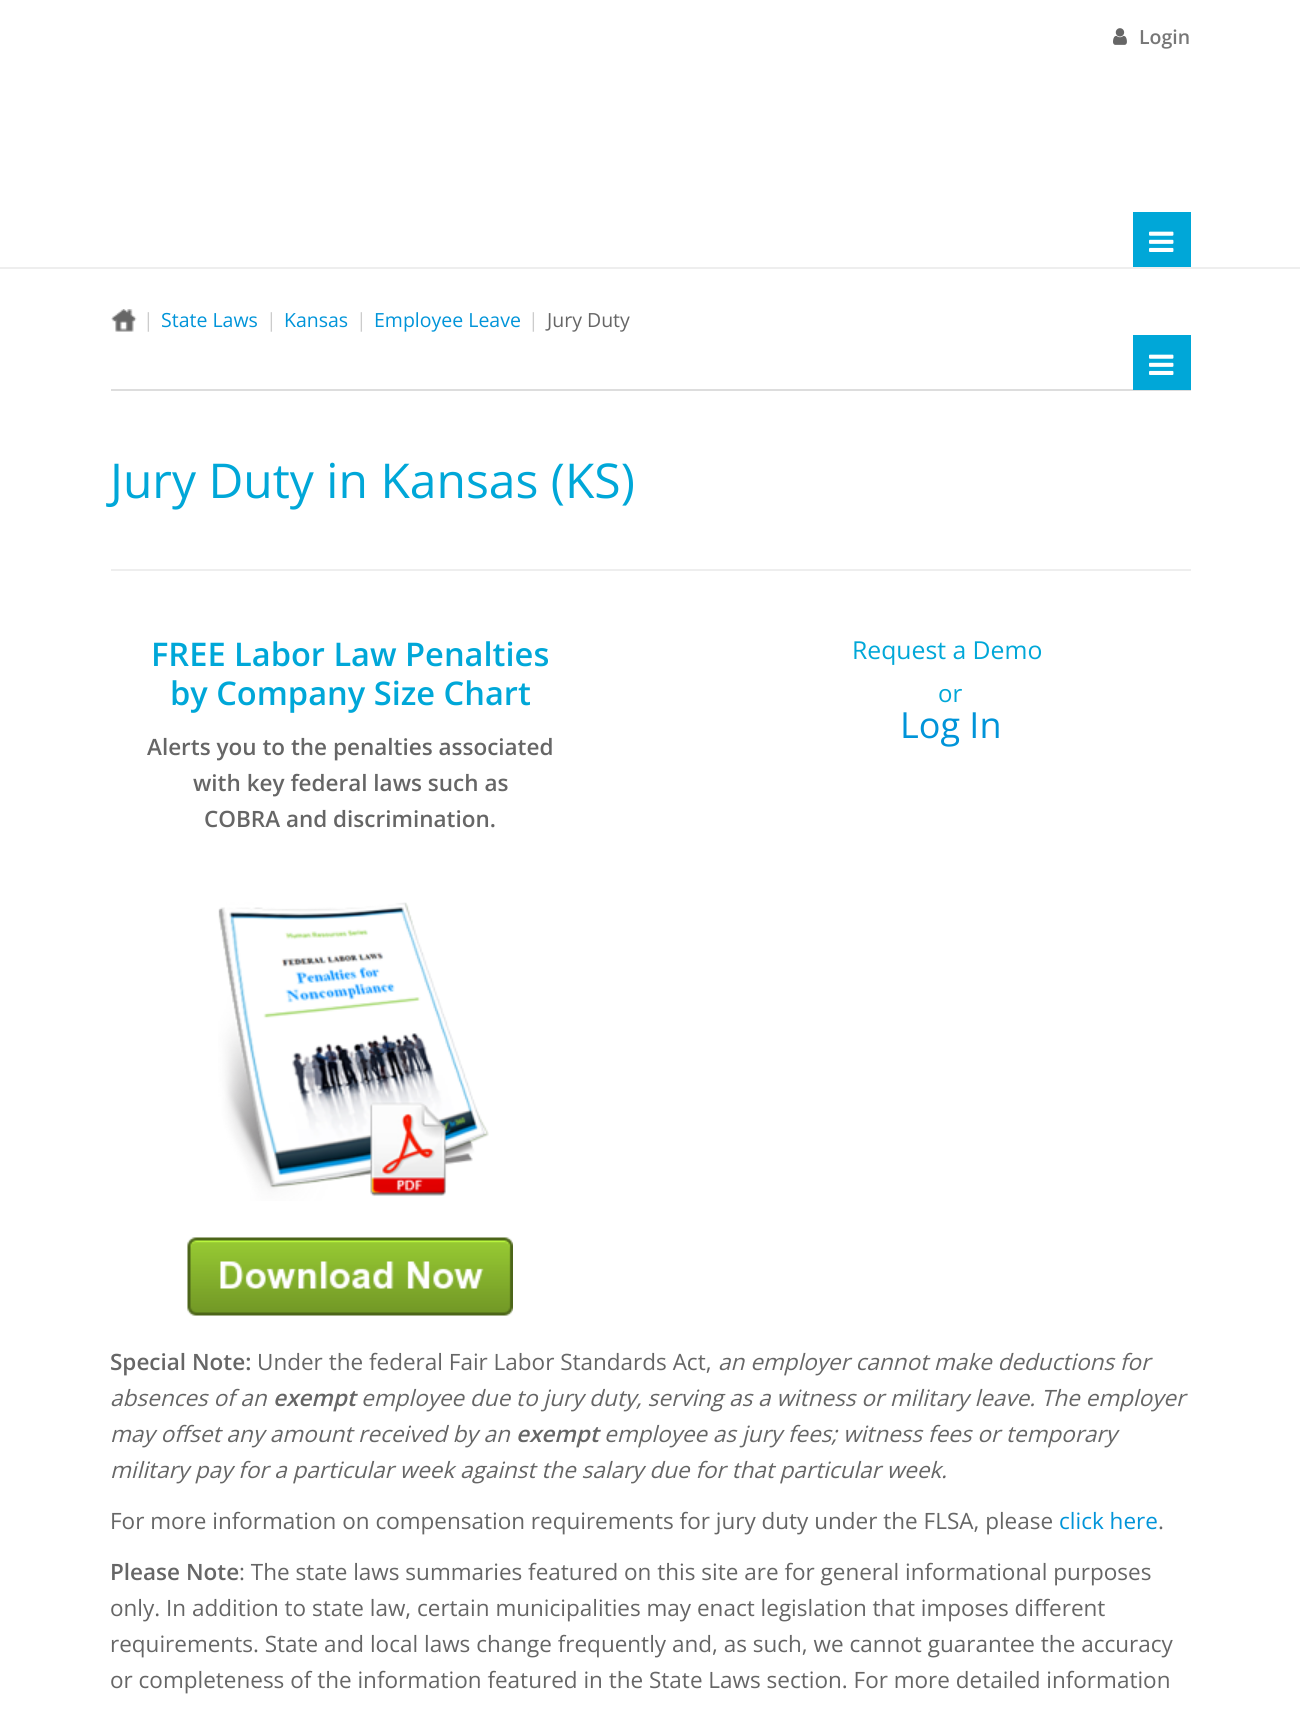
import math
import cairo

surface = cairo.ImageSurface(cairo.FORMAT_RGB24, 1300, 1709)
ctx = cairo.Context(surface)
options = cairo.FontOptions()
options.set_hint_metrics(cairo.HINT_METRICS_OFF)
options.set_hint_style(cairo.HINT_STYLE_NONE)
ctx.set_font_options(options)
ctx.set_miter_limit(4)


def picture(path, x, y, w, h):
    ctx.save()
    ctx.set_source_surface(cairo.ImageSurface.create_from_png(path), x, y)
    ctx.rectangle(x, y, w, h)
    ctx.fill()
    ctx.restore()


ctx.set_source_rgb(1, 1, 1)
ctx.paint()
ctx.set_source_rgb(0.933, 0.933, 0.933)
ctx.rectangle(0, 267, 1300, 2)
ctx.fill()
picture("img1.png", 1113, 28, 14, 17)
ctx.select_font_face("Open Sans SemiBold")
ctx.set_font_size(19.5)
ctx.set_source_rgb(0.467, 0.467, 0.467)
ctx.move_to(1139, 44)
ctx.show_text("Login")
ctx.set_source_rgb(0, 0.655, 0.847)
ctx.rectangle(1133, 212, 58, 55)
ctx.fill()
picture("img2.png", 1149, 231, 25, 21)
picture("img3.png", 111, 309, 26, 23)
ctx.select_font_face("Open Sans")
ctx.set_source_rgb(0.8, 0.8, 0.8)
ctx.move_to(143, 327)
ctx.show_text("|")
ctx.set_source_rgb(0, 0.58, 0.851)
ctx.move_to(161, 327)
ctx.show_text("State Laws")
ctx.set_source_rgb(0.8, 0.8, 0.8)
ctx.move_to(266, 327)
ctx.show_text("|")
ctx.set_source_rgb(0, 0.58, 0.851)
ctx.move_to(284, 327)
ctx.show_text("Kansas")
ctx.set_source_rgb(0.8, 0.8, 0.8)
ctx.move_to(356, 327)
ctx.show_text("|")
ctx.set_source_rgb(0, 0.58, 0.851)
ctx.move_to(374, 327)
ctx.show_text("Employee Leave")
ctx.set_source_rgb(0.8, 0.8, 0.8)
ctx.move_to(528, 327)
ctx.show_text("|")
ctx.set_source_rgb(0.4, 0.4, 0.4)
ctx.move_to(547, 327)
ctx.show_text("Jury Duty")
ctx.set_source_rgb(0.867, 0.867, 0.867)
ctx.rectangle(111, 389, 1080, 2)
ctx.fill()
ctx.set_source_rgb(0, 0.655, 0.847)
ctx.rectangle(1133, 335, 58, 55)
ctx.fill()
picture("img2.png", 1149, 354, 25, 21)
ctx.set_font_size(48)
ctx.move_to(110, 498)
ctx.show_text("Jury Duty in Kansas (KS)")
ctx.set_source_rgb(0.933, 0.933, 0.933)
ctx.rectangle(111, 569, 1080, 2)
ctx.fill()
ctx.select_font_face("Open Sans SemiBold")
ctx.set_font_size(32.6)
ctx.set_source_rgb(0, 0.655, 0.847)
ctx.move_to(151, 666)
ctx.show_text("FREE Labor Law Penalties")
ctx.move_to(170, 705)
ctx.show_text("by Company Size Chart")
ctx.set_font_size(22.5)
ctx.set_source_rgb(0.4, 0.4, 0.4)
ctx.move_to(147, 755)
ctx.show_text("Alerts you to the penalties associated")
ctx.move_to(193, 791)
ctx.show_text("with key federal laws such as")
ctx.move_to(204, 827)
ctx.show_text("COBRA and discrimination.")
picture("img4.png", 218, 902, 271, 299)
picture("img5.png", 187, 1237, 326, 79)
ctx.select_font_face("Open Sans")
ctx.set_font_size(24.75)
ctx.set_source_rgb(0, 0.655, 0.847)
ctx.move_to(852, 659)
ctx.show_text("Request a Demo")
ctx.set_font_size(24)
ctx.move_to(938, 702)
ctx.show_text("or")
ctx.set_font_size(36)
ctx.set_source_rgb(0, 0.58, 0.851)
ctx.move_to(900, 738)
ctx.show_text("Log In")
ctx.select_font_face("Open Sans SemiBold")
ctx.set_font_size(22.5)
ctx.set_source_rgb(0.4, 0.4, 0.4)
ctx.move_to(110, 1370)
ctx.show_text("Special Note:")
ctx.select_font_face("Open Sans")
ctx.move_to(257, 1370)
ctx.show_text("Under the federal Fair Labor Standards Act,")
ctx.select_font_face("Open Sans", cairo.FONT_SLANT_ITALIC)
ctx.move_to(718, 1370)
ctx.show_text("an employer cannot make deductions for")
ctx.move_to(110, 1406)
ctx.show_text("absences of an")
ctx.select_font_face("Open Sans SemiBold", cairo.FONT_SLANT_ITALIC)
ctx.move_to(273, 1406)
ctx.show_text("exempt")
ctx.select_font_face("Open Sans", cairo.FONT_SLANT_ITALIC)
ctx.move_to(361, 1406)
ctx.show_text("employee due to jury duty, serving as a witness or military leave. The employer")
ctx.move_to(110, 1442)
ctx.show_text("may offset any amount received by an")
ctx.select_font_face("Open Sans SemiBold", cairo.FONT_SLANT_ITALIC)
ctx.move_to(516, 1442)
ctx.show_text("exempt")
ctx.select_font_face("Open Sans", cairo.FONT_SLANT_ITALIC)
ctx.move_to(604, 1442)
ctx.show_text("employee as jury fees; witness fees or temporary")
ctx.move_to(110, 1478)
ctx.show_text("military pay for a particular week against the salary due for that particular week.")
ctx.select_font_face("Open Sans")
ctx.move_to(110, 1529)
ctx.show_text("For more information on compensation requirements for jury duty under the FLSA, please")
ctx.set_source_rgb(0, 0.58, 0.851)
ctx.move_to(1059, 1529)
ctx.show_text("click here")
ctx.set_source_rgb(0.4, 0.4, 0.4)
ctx.move_to(1158, 1529)
ctx.show_text(".")
ctx.select_font_face("Open Sans SemiBold")
ctx.move_to(110, 1580)
ctx.show_text("Please Note")
ctx.select_font_face("Open Sans")
ctx.move_to(239, 1580)
ctx.show_text(": The state laws summaries featured on this site are for general informational purposes")
ctx.move_to(110, 1616)
ctx.show_text("only. In addition to state law, certain municipalities may enact legislation that imposes different")
ctx.move_to(110, 1652)
ctx.show_text("requirements. State and local laws change frequently and, as such, we cannot guarantee the accuracy")
ctx.move_to(110, 1688)
ctx.show_text("or completeness of the information featured in the State Laws section. For more detailed information")
surface.write_to_png("page.png")
